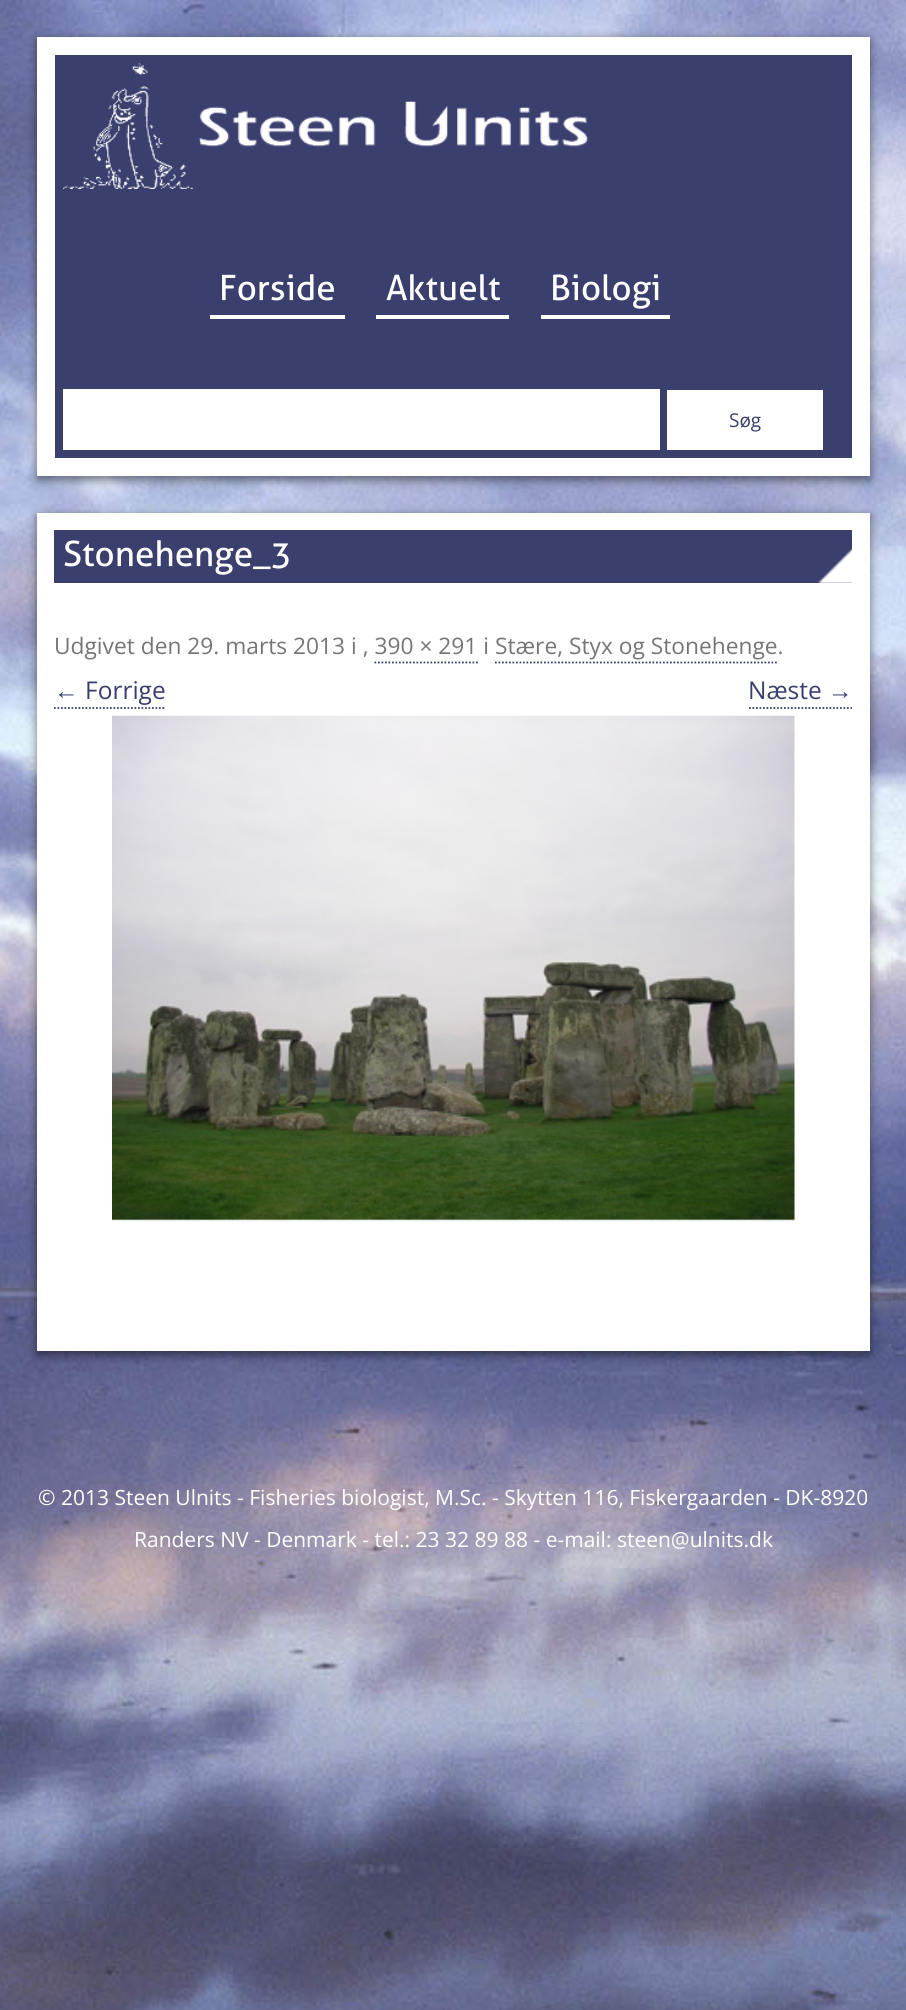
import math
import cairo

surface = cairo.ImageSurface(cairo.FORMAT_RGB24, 906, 2010)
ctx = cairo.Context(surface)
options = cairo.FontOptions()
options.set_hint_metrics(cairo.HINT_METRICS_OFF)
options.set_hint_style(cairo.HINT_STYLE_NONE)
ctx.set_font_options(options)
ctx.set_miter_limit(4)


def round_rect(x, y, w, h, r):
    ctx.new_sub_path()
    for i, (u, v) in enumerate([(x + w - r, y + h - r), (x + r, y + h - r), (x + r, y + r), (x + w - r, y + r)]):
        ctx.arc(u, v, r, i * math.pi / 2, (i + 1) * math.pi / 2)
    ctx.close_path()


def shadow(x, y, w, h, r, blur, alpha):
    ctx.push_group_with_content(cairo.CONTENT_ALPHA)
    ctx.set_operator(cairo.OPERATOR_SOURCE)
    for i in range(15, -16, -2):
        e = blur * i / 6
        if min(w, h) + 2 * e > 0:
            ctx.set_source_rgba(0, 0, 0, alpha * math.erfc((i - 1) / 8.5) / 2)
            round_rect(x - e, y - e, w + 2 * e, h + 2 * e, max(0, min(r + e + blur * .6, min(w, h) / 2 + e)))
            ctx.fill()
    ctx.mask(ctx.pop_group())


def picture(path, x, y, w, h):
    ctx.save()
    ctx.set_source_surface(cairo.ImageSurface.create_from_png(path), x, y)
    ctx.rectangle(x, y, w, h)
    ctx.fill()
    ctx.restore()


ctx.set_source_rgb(1, 1, 1)
ctx.paint()
picture("img1.png", 0, 0, 906, 2010)
ctx.set_source_rgb(0, 0, 0)
shadow(37, 40, 833, 440, 0, 5, 0.5)
ctx.set_source_rgb(0.227, 0.247, 0.431)
ctx.rectangle(46, 46, 815, 421)
ctx.fill_preserve()
ctx.set_source_rgb(1, 1, 1)
ctx.set_line_width(18)
ctx.stroke()
picture("img2.png", 63, 63, 525, 126)
ctx.rectangle(210, 315, 135, 4)
ctx.fill()
ctx.select_font_face("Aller")
ctx.set_font_size(35)
ctx.move_to(219, 300)
ctx.show_text("Forside")
ctx.rectangle(376, 315, 133, 4)
ctx.fill()
ctx.move_to(386, 300)
ctx.show_text("Aktuelt")
ctx.rectangle(541, 315, 129, 4)
ctx.fill()
ctx.move_to(550, 300)
ctx.show_text("Biologi")
ctx.rectangle(63, 389, 597, 61)
ctx.fill()
ctx.rectangle(667, 390, 156, 60)
ctx.fill()
ctx.select_font_face("Open Sans")
ctx.set_font_size(19)
ctx.set_source_rgb(0.224, 0.247, 0.427)
ctx.move_to(729, 427)
ctx.show_text("Søg")
ctx.set_source_rgb(0, 0, 0)
shadow(37, 516, 833, 839, 0, 5, 0.5)
ctx.set_source_rgb(1, 1, 1)
ctx.rectangle(37, 513, 833, 838)
ctx.fill()
ctx.set_source_rgb(0.227, 0.247, 0.431)
ctx.rectangle(54, 530, 798, 53)
ctx.fill()
picture("img3.png", 818, 549, 34, 34)
ctx.select_font_face("Aller")
ctx.set_font_size(35)
ctx.set_source_rgb(1, 1, 1)
ctx.move_to(63, 566)
ctx.show_text("Stonehenge_3")
ctx.select_font_face("Open Sans")
ctx.set_font_size(22.75)
ctx.set_source_rgb(0.459, 0.459, 0.459)
ctx.move_to(54, 654)
ctx.show_text("Udgivet den 29. marts 2013 i , 390 × 291 i Stære, Styx og Stonehenge.")
ctx.new_path()
ctx.move_to(374.5, 662.5)
ctx.line_to(478, 662.5)
ctx.set_source_rgb(0.224, 0.247, 0.427)
ctx.set_line_width(1.8)
ctx.set_dash([1.75, 1.75])
ctx.stroke()
ctx.new_path()
ctx.move_to(495, 662.5)
ctx.line_to(777, 662.5)
ctx.stroke()
ctx.select_font_face("Liberation Sans")
ctx.set_font_size(24.5)
ctx.move_to(54, 699)
ctx.show_text("←")
ctx.new_path()
ctx.move_to(54, 708)
ctx.line_to(164.5, 708)
ctx.stroke()
ctx.select_font_face("Open Sans")
ctx.move_to(85, 699)
ctx.show_text("Forrige")
ctx.move_to(748, 699)
ctx.show_text("Næste")
ctx.select_font_face("Liberation Sans")
ctx.move_to(828, 699)
ctx.show_text("→")
ctx.new_path()
ctx.move_to(749, 708)
ctx.line_to(852, 708)
ctx.stroke()
picture("img4.png", 112, 715, 683, 506)
ctx.select_font_face("Open Sans")
ctx.set_font_size(21)
ctx.set_source_rgb(1, 1, 1)
ctx.move_to(38, 1505)
ctx.show_text("© 2013 Steen Ulnits - Fisheries biologist, M.Sc. - Skytten 116, Fiskergaarden - DK-8920")
ctx.move_to(134, 1547)
ctx.show_text("Randers NV - Denmark - tel.: 23 32 89 88 - e-mail: steen@ulnits.dk")
surface.write_to_png("page.png")
